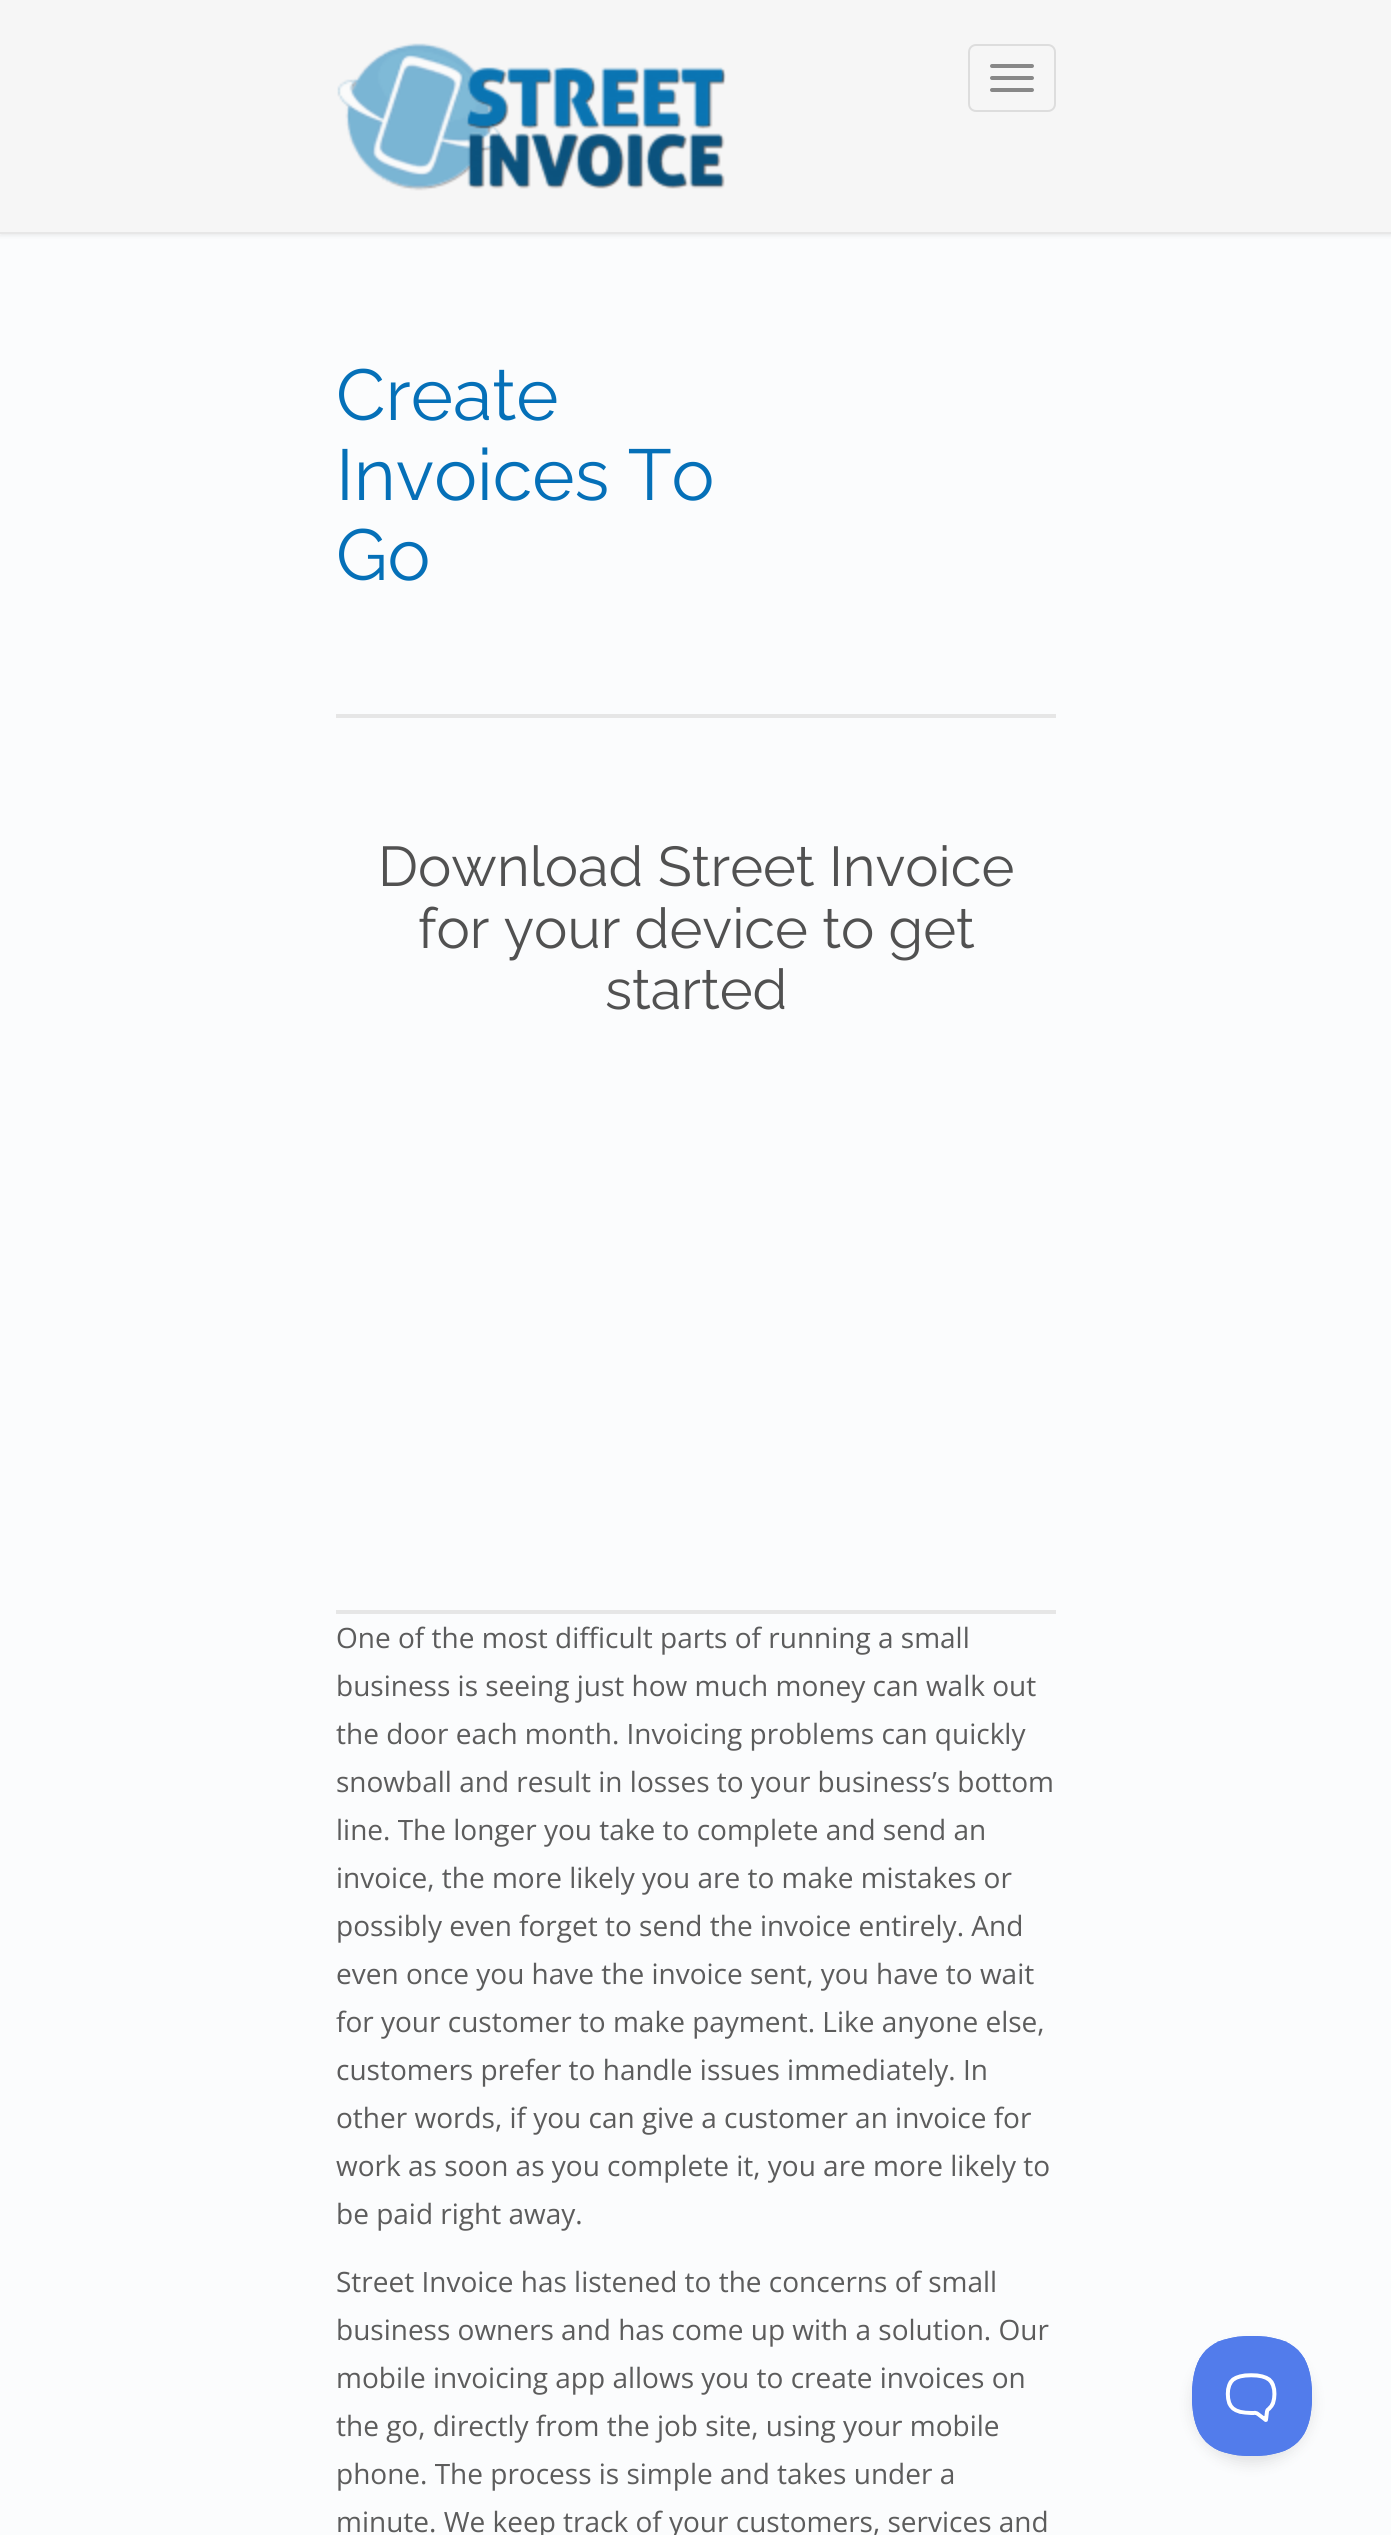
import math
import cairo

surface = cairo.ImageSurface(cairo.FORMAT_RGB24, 1391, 2535)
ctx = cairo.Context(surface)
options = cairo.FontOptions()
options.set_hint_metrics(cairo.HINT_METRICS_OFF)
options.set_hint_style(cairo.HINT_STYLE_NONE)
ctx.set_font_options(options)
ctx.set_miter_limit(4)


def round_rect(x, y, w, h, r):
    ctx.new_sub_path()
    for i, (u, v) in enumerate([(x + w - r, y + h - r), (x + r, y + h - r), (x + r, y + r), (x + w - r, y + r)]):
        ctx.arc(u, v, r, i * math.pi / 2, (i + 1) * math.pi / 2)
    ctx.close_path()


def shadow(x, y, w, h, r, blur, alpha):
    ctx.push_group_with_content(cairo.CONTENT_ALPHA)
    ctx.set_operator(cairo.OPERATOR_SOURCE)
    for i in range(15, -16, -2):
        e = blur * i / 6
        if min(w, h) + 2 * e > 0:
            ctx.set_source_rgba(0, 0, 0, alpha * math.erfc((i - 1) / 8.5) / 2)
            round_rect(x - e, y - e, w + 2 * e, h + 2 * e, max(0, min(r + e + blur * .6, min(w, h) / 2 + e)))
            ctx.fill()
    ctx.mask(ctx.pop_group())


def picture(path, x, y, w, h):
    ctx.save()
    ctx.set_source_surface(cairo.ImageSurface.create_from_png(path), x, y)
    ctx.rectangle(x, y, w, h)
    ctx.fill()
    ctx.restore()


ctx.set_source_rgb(0.984, 0.988, 0.992)
ctx.paint()
ctx.set_source_rgb(0.169, 0.188, 0.2)
shadow(0, 2, 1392, 234, 0, 2, 0.08)
ctx.set_source_rgb(0.961, 0.961, 0.961)
ctx.rectangle(0, 0, 1391, 232)
ctx.fill()
ctx.set_source_rgb(0.906, 0.906, 0.906)
ctx.rectangle(0, 232, 1391, 2)
ctx.fill()
picture("img1.png", 337, 43, 389, 148)
round_rect(969, 45, 86, 66, 7)
ctx.set_source_rgb(0.867, 0.867, 0.867)
ctx.stroke()
ctx.set_source_rgb(0.533, 0.533, 0.533)
round_rect(990, 64, 44, 4, 2)
ctx.fill()
round_rect(990, 76, 44, 4, 2)
ctx.fill()
round_rect(990, 88, 44, 4, 2)
ctx.fill()
ctx.select_font_face("Raleway")
ctx.set_font_size(72)
ctx.set_source_rgb(0.02, 0.439, 0.722)
ctx.move_to(336, 420)
ctx.show_text("Create")
ctx.move_to(336, 500)
ctx.show_text("Invoices To")
ctx.move_to(336, 580)
ctx.show_text("Go")
ctx.set_source_rgb(0.902, 0.902, 0.902)
ctx.rectangle(336, 714, 720, 4)
ctx.fill()
ctx.set_font_size(56)
ctx.set_source_rgb(0.318, 0.318, 0.318)
ctx.move_to(378, 886)
ctx.show_text("Download Street Invoice")
ctx.move_to(418, 948)
ctx.show_text("for your device to get")
ctx.move_to(605, 1009)
ctx.show_text("started")
ctx.set_source_rgb(0.902, 0.902, 0.902)
ctx.rectangle(336, 1610, 720, 4)
ctx.fill()
ctx.select_font_face("Open Sans")
ctx.set_font_size(28)
ctx.set_source_rgb(0.361, 0.361, 0.361)
ctx.move_to(336, 1648)
ctx.show_text("One of the most difficult parts of running a small")
ctx.move_to(336, 1696)
ctx.show_text("business is seeing just how much money can walk out")
ctx.move_to(336, 1744)
ctx.show_text("the door each month. Invoicing problems can quickly")
ctx.move_to(336, 1792)
ctx.show_text("snowball and result in losses to your business’s bottom")
ctx.move_to(336, 1840)
ctx.show_text("line. The longer you take to complete and send an")
ctx.move_to(336, 1888)
ctx.show_text("invoice, the more likely you are to make mistakes or")
ctx.move_to(336, 1936)
ctx.show_text("possibly even forget to send the invoice entirely. And")
ctx.move_to(336, 1984)
ctx.show_text("even once you have the invoice sent, you have to wait")
ctx.move_to(336, 2032)
ctx.show_text("for your customer to make payment. Like anyone else,")
ctx.move_to(336, 2080)
ctx.show_text("customers prefer to handle issues immediately. In")
ctx.move_to(336, 2128)
ctx.show_text("other words, if you can give a customer an invoice for")
ctx.move_to(336, 2176)
ctx.show_text("work as soon as you complete it, you are more likely to")
ctx.move_to(336, 2224)
ctx.show_text("be paid right away.")
ctx.move_to(336, 2292)
ctx.show_text("Street Invoice has listened to the concerns of small")
ctx.move_to(336, 2340)
ctx.show_text("business owners and has come up with a solution. Our")
ctx.move_to(336, 2388)
ctx.show_text("mobile invoicing app allows you to create invoices on")
ctx.move_to(336, 2436)
ctx.show_text("the go, directly from the job site, using your mobile")
ctx.move_to(336, 2484)
ctx.show_text("phone. The process is simple and takes under a")
ctx.move_to(336, 2532)
ctx.show_text("minute. We keep track of your customers, services and")
ctx.set_source_rgb(0, 0, 0)
shadow(1192, 2344, 120, 120, 60, 7, 0.1)
picture("img2.png", 1192, 2336, 120, 120)
surface.write_to_png("page.png")
